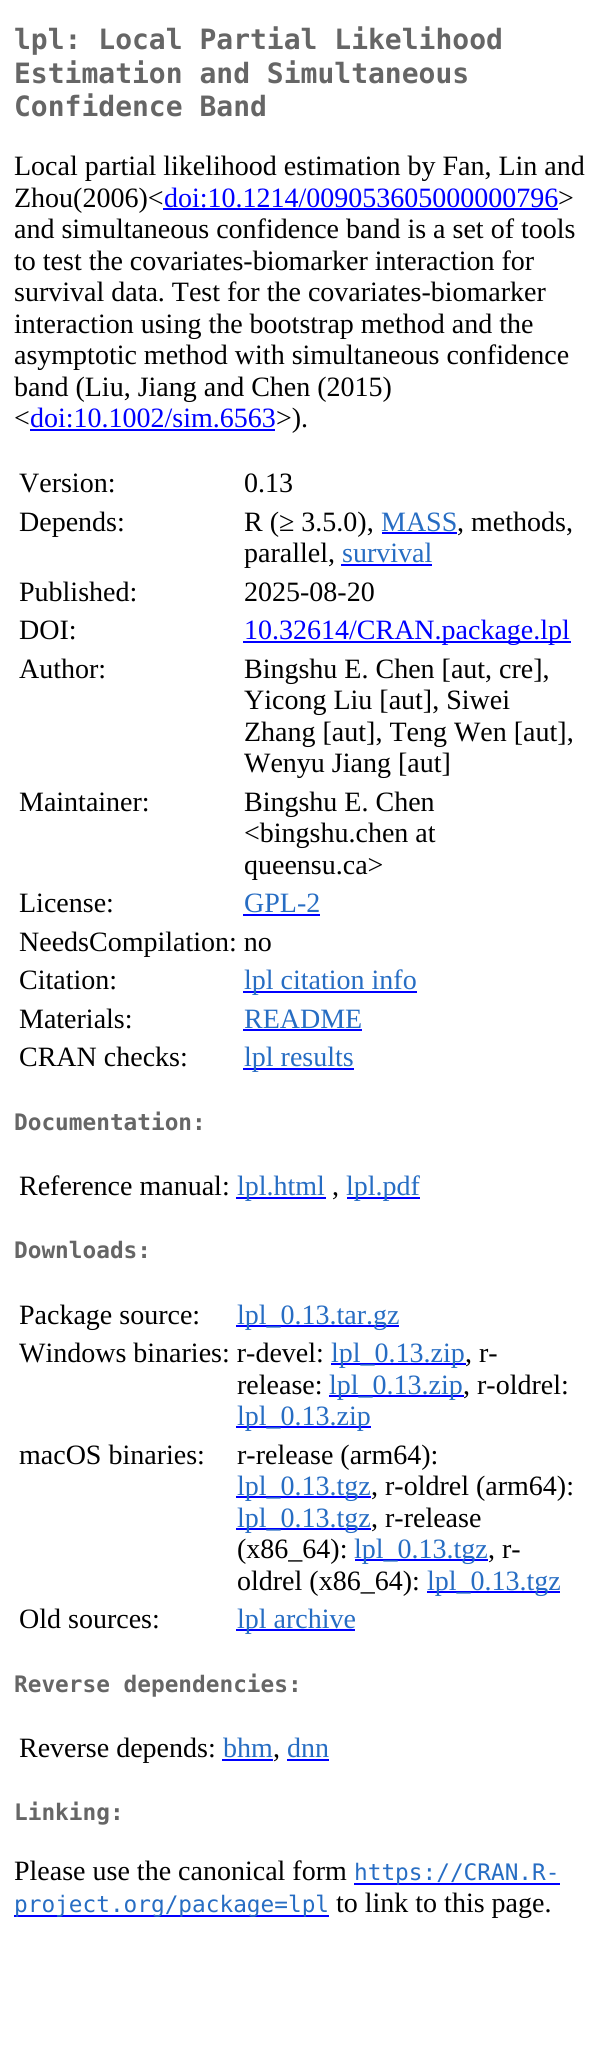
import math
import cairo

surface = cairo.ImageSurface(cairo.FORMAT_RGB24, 600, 2072)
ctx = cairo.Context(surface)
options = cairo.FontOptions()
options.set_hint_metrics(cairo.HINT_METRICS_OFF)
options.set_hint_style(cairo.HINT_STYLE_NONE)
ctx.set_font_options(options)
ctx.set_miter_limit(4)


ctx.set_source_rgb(1, 1, 1)
ctx.paint()
ctx.select_font_face("DejaVu Sans Mono", cairo.FONT_SLANT_NORMAL, cairo.FONT_WEIGHT_BOLD)
ctx.set_font_size(28)
ctx.set_source_rgb(0.4, 0.4, 0.4)
ctx.move_to(14, 49)
ctx.show_text("lpl: Local Partial Likelihood")
ctx.move_to(14, 83)
ctx.show_text("Estimation and Simultaneous")
ctx.move_to(14, 116)
ctx.show_text("Confidence Band")
ctx.select_font_face("Liberation Serif")
ctx.set_source_rgb(0, 0, 0)
ctx.move_to(14, 175)
ctx.show_text("Local partial likelihood estimation by Fan, Lin and")
ctx.move_to(14, 207)
ctx.show_text("Zhou(2006)<")
ctx.set_source_rgb(0, 0, 1)
ctx.move_to(164, 207)
ctx.show_text("doi:10.1214/009053605000000796")
ctx.rectangle(163, 208, 395, 2)
ctx.fill()
ctx.set_source_rgb(0, 0, 0)
ctx.move_to(558, 207)
ctx.show_text(">")
ctx.move_to(14, 238)
ctx.show_text("and simultaneous confidence band is a set of tools")
ctx.move_to(14, 270)
ctx.show_text("to test the covariates-biomarker interaction for")
ctx.move_to(14, 301)
ctx.show_text("survival data. Test for the covariates-biomarker")
ctx.move_to(14, 333)
ctx.show_text("interaction using the bootstrap method and the")
ctx.move_to(14, 364)
ctx.show_text("asymptotic method with simultaneous confidence")
ctx.move_to(14, 396)
ctx.show_text("band (Liu, Jiang and Chen (2015)")
ctx.move_to(14, 427)
ctx.show_text("<")
ctx.set_source_rgb(0, 0, 1)
ctx.move_to(30, 427)
ctx.show_text("doi:10.1002/sim.6563")
ctx.rectangle(30, 429, 245, 2)
ctx.fill()
ctx.set_source_rgb(0, 0, 0)
ctx.move_to(276, 427)
ctx.show_text(">).")
ctx.move_to(19, 492)
ctx.show_text("Version:")
ctx.move_to(244, 492)
ctx.show_text("0.13")
ctx.move_to(19, 531)
ctx.show_text("Depends:")
ctx.move_to(244, 531)
ctx.show_text("R (≥ 3.5.0),")
ctx.set_source_rgb(0.153, 0.427, 0.765)
ctx.move_to(381, 531)
ctx.show_text("MASS")
ctx.set_source_rgb(0, 0, 1)
ctx.rectangle(382, 532, 75, 2)
ctx.fill()
ctx.set_source_rgb(0, 0, 0)
ctx.move_to(457, 531)
ctx.show_text(", methods,")
ctx.move_to(244, 562)
ctx.show_text("parallel,")
ctx.set_source_rgb(0.153, 0.427, 0.765)
ctx.move_to(342, 562)
ctx.show_text("survival")
ctx.set_source_rgb(0, 0, 1)
ctx.rectangle(341, 564, 91, 2)
ctx.fill()
ctx.set_source_rgb(0, 0, 0)
ctx.move_to(19, 601)
ctx.show_text("Published:")
ctx.move_to(244, 601)
ctx.show_text("2025-08-20")
ctx.move_to(19, 639)
ctx.show_text("DOI:")
ctx.set_source_rgb(0, 0, 1)
ctx.rectangle(243, 641, 328, 2)
ctx.fill()
ctx.move_to(244, 639)
ctx.show_text("10.32614/CRAN.package.lpl")
ctx.set_source_rgb(0, 0, 0)
ctx.move_to(19, 678)
ctx.show_text("Author:")
ctx.move_to(244, 678)
ctx.show_text("Bingshu E. Chen [aut, cre],")
ctx.move_to(244, 709)
ctx.show_text("Yicong Liu [aut], Siwei")
ctx.move_to(244, 741)
ctx.show_text("Zhang [aut], Teng Wen [aut],")
ctx.move_to(244, 772)
ctx.show_text("Wenyu Jiang [aut]")
ctx.move_to(19, 811)
ctx.show_text("Maintainer:")
ctx.move_to(244, 811)
ctx.show_text("Bingshu E. Chen")
ctx.move_to(244, 842)
ctx.show_text("<bingshu.chen at")
ctx.move_to(244, 874)
ctx.show_text("queensu.ca>")
ctx.move_to(19, 912)
ctx.show_text("License:")
ctx.set_source_rgb(0.153, 0.427, 0.765)
ctx.move_to(244, 912)
ctx.show_text("GPL-2")
ctx.set_source_rgb(0, 0, 1)
ctx.rectangle(243, 914, 77, 2)
ctx.fill()
ctx.set_source_rgb(0, 0, 0)
ctx.move_to(19, 951)
ctx.show_text("NeedsCompilation: no")
ctx.move_to(19, 989)
ctx.show_text("Citation:")
ctx.set_source_rgb(0, 0, 1)
ctx.rectangle(243, 991, 174, 2)
ctx.fill()
ctx.set_source_rgb(0.153, 0.427, 0.765)
ctx.move_to(244, 989)
ctx.show_text("lpl citation info")
ctx.set_source_rgb(0, 0, 0)
ctx.move_to(19, 1028)
ctx.show_text("Materials:")
ctx.set_source_rgb(0.153, 0.427, 0.765)
ctx.move_to(244, 1028)
ctx.show_text("README")
ctx.set_source_rgb(0, 0, 1)
ctx.rectangle(243, 1029, 119, 2)
ctx.fill()
ctx.set_source_rgb(0, 0, 0)
ctx.move_to(19, 1066)
ctx.show_text("CRAN checks:")
ctx.set_source_rgb(0, 0, 1)
ctx.rectangle(243, 1068, 111, 2)
ctx.fill()
ctx.set_source_rgb(0.153, 0.427, 0.765)
ctx.move_to(244, 1066)
ctx.show_text("lpl results")
ctx.select_font_face("DejaVu Sans Mono", cairo.FONT_SLANT_NORMAL, cairo.FONT_WEIGHT_BOLD)
ctx.set_font_size(22.75)
ctx.set_source_rgb(0.4, 0.4, 0.4)
ctx.move_to(14, 1130)
ctx.show_text("Documentation:")
ctx.select_font_face("Liberation Serif")
ctx.set_font_size(28)
ctx.set_source_rgb(0, 0, 0)
ctx.move_to(19, 1195)
ctx.show_text("Reference manual:")
ctx.set_source_rgb(0, 0, 1)
ctx.rectangle(236, 1197, 90, 2)
ctx.fill()
ctx.set_source_rgb(0.153, 0.427, 0.765)
ctx.move_to(237, 1195)
ctx.show_text("lpl.html")
ctx.set_source_rgb(0, 0, 0)
ctx.move_to(332, 1195)
ctx.show_text(",")
ctx.set_source_rgb(0, 0, 1)
ctx.rectangle(347, 1197, 73, 2)
ctx.fill()
ctx.set_source_rgb(0.153, 0.427, 0.765)
ctx.move_to(346, 1195)
ctx.show_text("lpl.pdf")
ctx.select_font_face("DejaVu Sans Mono", cairo.FONT_SLANT_NORMAL, cairo.FONT_WEIGHT_BOLD)
ctx.set_font_size(22.75)
ctx.set_source_rgb(0.4, 0.4, 0.4)
ctx.move_to(14, 1258)
ctx.show_text("Downloads:")
ctx.select_font_face("Liberation Serif")
ctx.set_font_size(28)
ctx.set_source_rgb(0, 0, 0)
ctx.move_to(19, 1324)
ctx.show_text("Package source:")
ctx.set_source_rgb(0, 0, 1)
ctx.rectangle(236, 1325, 163, 2)
ctx.fill()
ctx.set_source_rgb(0.153, 0.427, 0.765)
ctx.move_to(237, 1324)
ctx.show_text("lpl_0.13.tar.gz")
ctx.set_source_rgb(0, 0, 0)
ctx.move_to(19, 1362)
ctx.show_text("Windows binaries: r-devel:")
ctx.set_source_rgb(0, 0, 1)
ctx.rectangle(331, 1363, 135, 2)
ctx.fill()
ctx.set_source_rgb(0.153, 0.427, 0.765)
ctx.move_to(331, 1362)
ctx.show_text("lpl_0.13.zip")
ctx.set_source_rgb(0, 0, 0)
ctx.move_to(465, 1362)
ctx.show_text(", r-")
ctx.move_to(237, 1394)
ctx.show_text("release:")
ctx.set_source_rgb(0, 0, 1)
ctx.rectangle(329, 1395, 135, 2)
ctx.fill()
ctx.set_source_rgb(0.153, 0.427, 0.765)
ctx.move_to(329, 1394)
ctx.show_text("lpl_0.13.zip")
ctx.set_source_rgb(0, 0, 0)
ctx.move_to(463, 1394)
ctx.show_text(", r-oldrel:")
ctx.set_source_rgb(0, 0, 1)
ctx.rectangle(236, 1426, 135, 2)
ctx.fill()
ctx.set_source_rgb(0.153, 0.427, 0.765)
ctx.move_to(237, 1425)
ctx.show_text("lpl_0.13.zip")
ctx.set_source_rgb(0, 0, 0)
ctx.move_to(19, 1464)
ctx.show_text("macOS binaries:")
ctx.move_to(237, 1464)
ctx.show_text("r-release (arm64):")
ctx.set_source_rgb(0, 0, 1)
ctx.rectangle(236, 1496, 135, 2)
ctx.fill()
ctx.set_source_rgb(0.153, 0.427, 0.765)
ctx.move_to(237, 1495)
ctx.show_text("lpl_0.13.tgz")
ctx.set_source_rgb(0, 0, 0)
ctx.move_to(371, 1495)
ctx.show_text(", r-oldrel (arm64):")
ctx.set_source_rgb(0, 0, 1)
ctx.rectangle(236, 1528, 135, 2)
ctx.fill()
ctx.set_source_rgb(0.153, 0.427, 0.765)
ctx.move_to(237, 1527)
ctx.show_text("lpl_0.13.tgz")
ctx.set_source_rgb(0, 0, 0)
ctx.move_to(371, 1527)
ctx.show_text(", r-release")
ctx.move_to(237, 1558)
ctx.show_text("(x86_64):")
ctx.set_source_rgb(0, 0, 1)
ctx.rectangle(355, 1559, 133, 2)
ctx.fill()
ctx.set_source_rgb(0.153, 0.427, 0.765)
ctx.move_to(354, 1558)
ctx.show_text("lpl_0.13.tgz")
ctx.set_source_rgb(0, 0, 0)
ctx.move_to(488, 1558)
ctx.show_text(", r-")
ctx.move_to(237, 1590)
ctx.show_text("oldrel (x86_64):")
ctx.set_source_rgb(0, 0, 1)
ctx.rectangle(427, 1591, 133, 2)
ctx.fill()
ctx.set_source_rgb(0.153, 0.427, 0.765)
ctx.move_to(427, 1590)
ctx.show_text("lpl_0.13.tgz")
ctx.set_source_rgb(0, 0, 0)
ctx.move_to(19, 1628)
ctx.show_text("Old sources:")
ctx.set_source_rgb(0, 0, 1)
ctx.rectangle(236, 1629, 119, 2)
ctx.fill()
ctx.set_source_rgb(0.153, 0.427, 0.765)
ctx.move_to(237, 1628)
ctx.show_text("lpl archive")
ctx.select_font_face("DejaVu Sans Mono", cairo.FONT_SLANT_NORMAL, cairo.FONT_WEIGHT_BOLD)
ctx.set_font_size(22.75)
ctx.set_source_rgb(0.4, 0.4, 0.4)
ctx.move_to(14, 1692)
ctx.show_text("Reverse dependencies:")
ctx.select_font_face("Liberation Serif")
ctx.set_font_size(28)
ctx.set_source_rgb(0, 0, 0)
ctx.move_to(19, 1757)
ctx.show_text("Reverse depends:")
ctx.set_source_rgb(0.153, 0.427, 0.765)
ctx.move_to(223, 1757)
ctx.show_text("bhm")
ctx.set_source_rgb(0, 0, 1)
ctx.rectangle(222, 1759, 51, 2)
ctx.fill()
ctx.set_source_rgb(0, 0, 0)
ctx.move_to(273, 1757)
ctx.show_text(",")
ctx.set_source_rgb(0.153, 0.427, 0.765)
ctx.move_to(287, 1757)
ctx.show_text("dnn")
ctx.set_source_rgb(0, 0, 1)
ctx.rectangle(287, 1759, 42, 2)
ctx.fill()
ctx.select_font_face("DejaVu Sans Mono", cairo.FONT_SLANT_NORMAL, cairo.FONT_WEIGHT_BOLD)
ctx.set_font_size(22.75)
ctx.set_source_rgb(0.4, 0.4, 0.4)
ctx.move_to(14, 1820)
ctx.show_text("Linking:")
ctx.select_font_face("Liberation Serif")
ctx.set_font_size(28)
ctx.set_source_rgb(0, 0, 0)
ctx.move_to(14, 1880)
ctx.show_text("Please use the canonical form")
ctx.set_source_rgb(0, 0, 1)
ctx.rectangle(354, 1883, 206, 2)
ctx.fill()
ctx.select_font_face("DejaVu Sans Mono")
ctx.set_font_size(22.75)
ctx.set_source_rgb(0.153, 0.427, 0.765)
ctx.move_to(354, 1880)
ctx.show_text("https://CRAN.R-")
ctx.set_source_rgb(0, 0, 1)
ctx.rectangle(14, 1915, 315, 2)
ctx.fill()
ctx.set_source_rgb(0.153, 0.427, 0.765)
ctx.move_to(14, 1912)
ctx.show_text("project.org/package=lpl")
ctx.select_font_face("Liberation Serif")
ctx.set_font_size(28)
ctx.set_source_rgb(0, 0, 0)
ctx.move_to(336, 1912)
ctx.show_text("to link to this page.")
surface.write_to_png("page.png")
